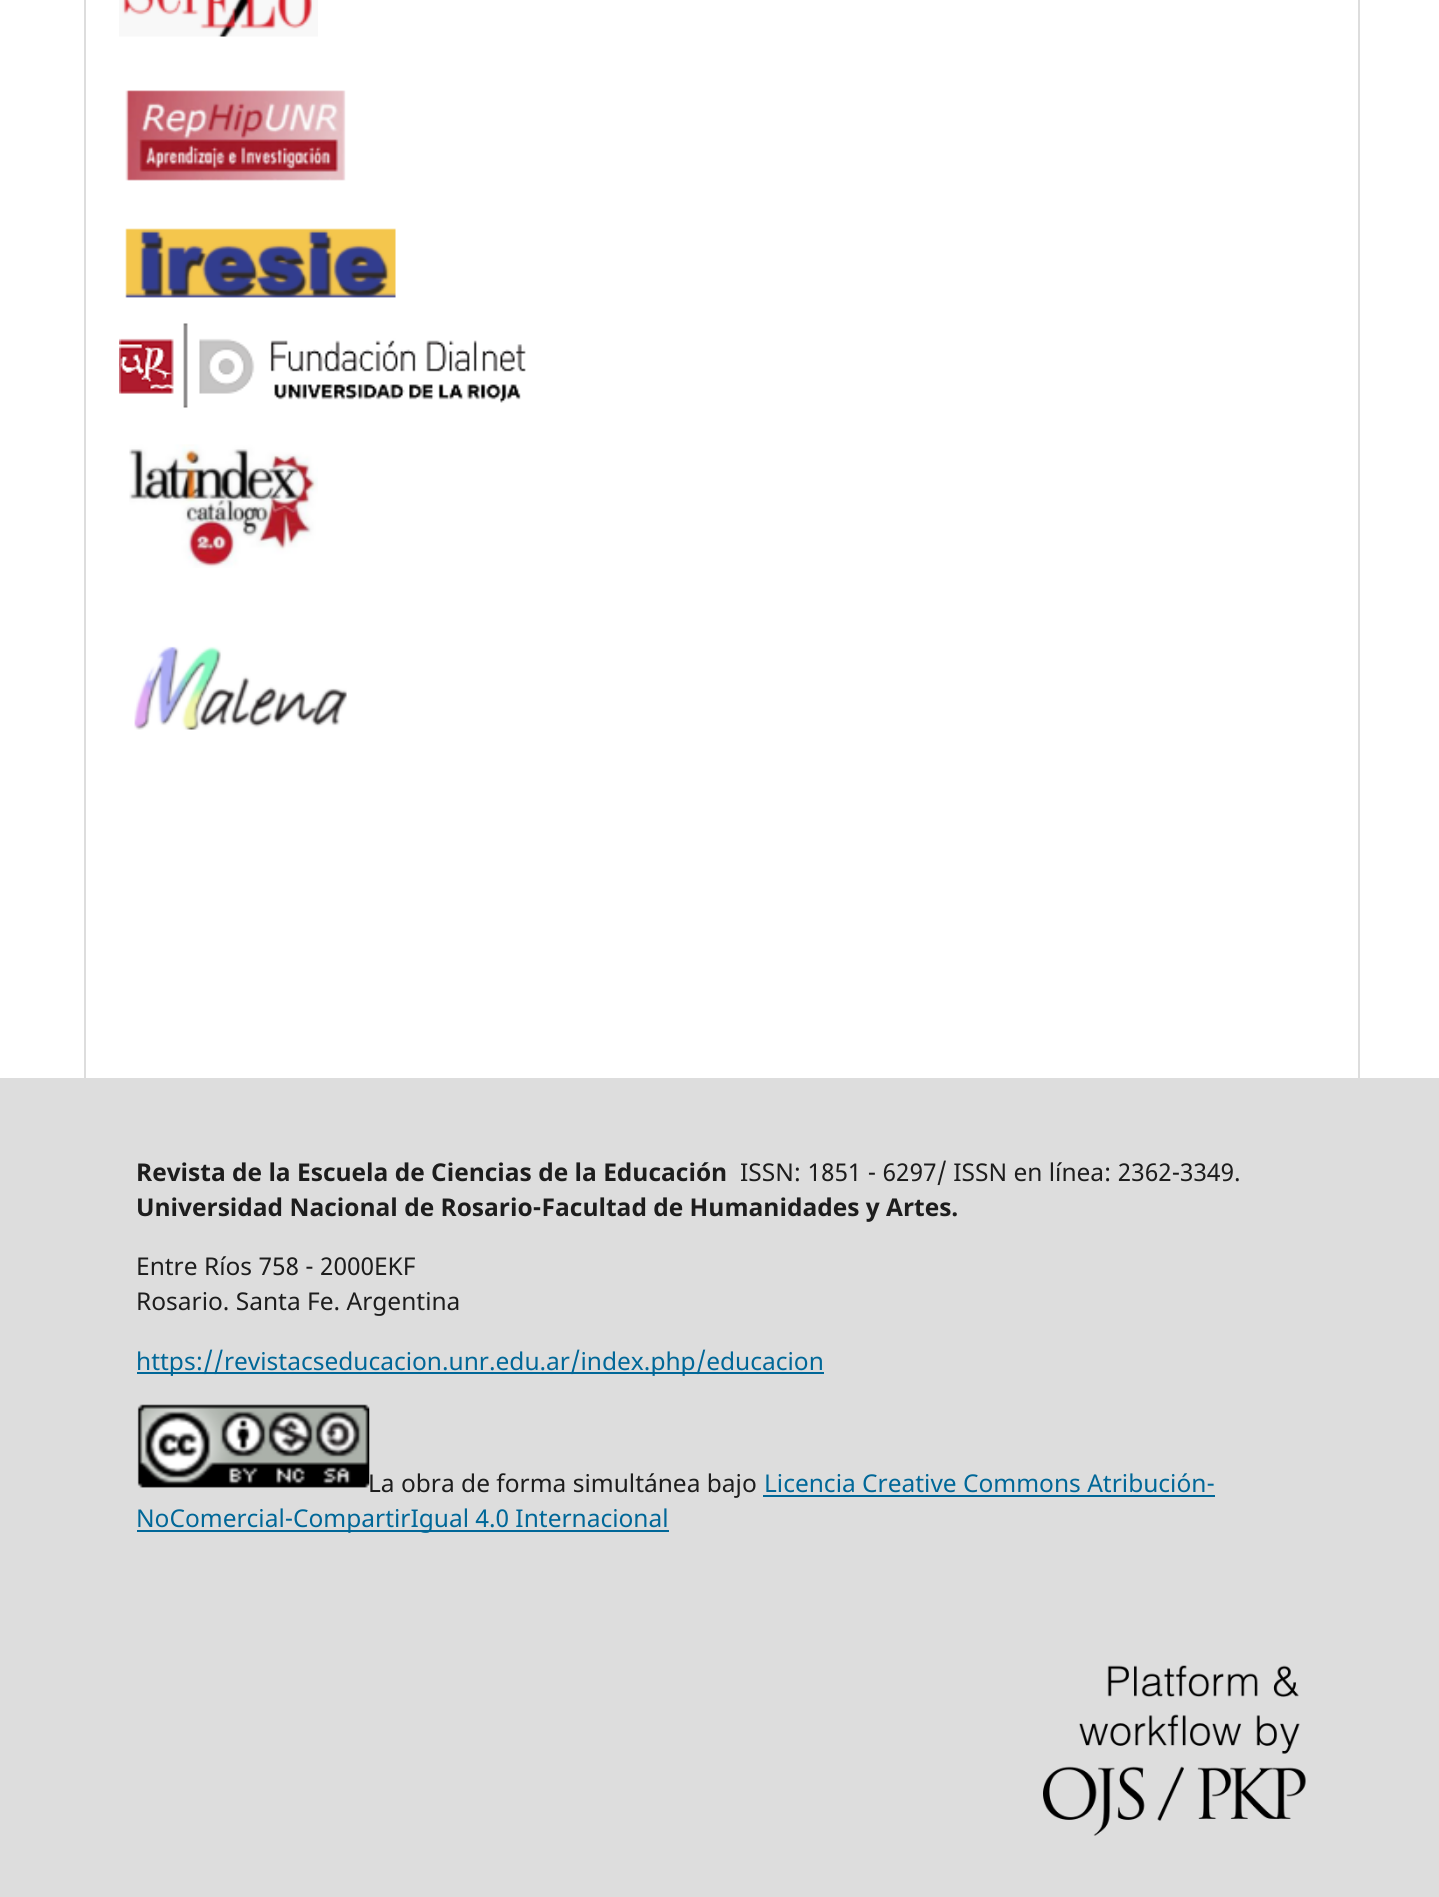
import math
import cairo

surface = cairo.ImageSurface(cairo.FORMAT_RGB24, 1439, 1897)
ctx = cairo.Context(surface)
options = cairo.FontOptions()
options.set_hint_metrics(cairo.HINT_METRICS_OFF)
options.set_hint_style(cairo.HINT_STYLE_NONE)
ctx.set_font_options(options)
ctx.set_miter_limit(4)


def picture(path, x, y, w, h):
    ctx.save()
    ctx.set_source_surface(cairo.ImageSurface.create_from_png(path), x, y)
    ctx.rectangle(x, y, w, h)
    ctx.fill()
    ctx.restore()


ctx.set_source_rgb(1, 1, 1)
ctx.paint()
ctx.set_source_rgb(0.867, 0.867, 0.867)
ctx.rectangle(84, 0, 2, 1078)
ctx.fill()
ctx.rectangle(1358, 0, 2, 1078)
ctx.fill()
picture("img1.png", 119, 0, 199, 37)
picture("img2.png", 125, 90, 221, 91)
picture("img3.png", 125, 228, 271, 70)
picture("img4.png", 119, 323, 407, 85)
picture("img5.png", 129, 444, 189, 124)
picture("img6.png", 134, 646, 213, 84)
ctx.rectangle(0, 1078, 1439, 819)
ctx.fill()
ctx.select_font_face("Noto Sans", cairo.FONT_SLANT_NORMAL, cairo.FONT_WEIGHT_BOLD)
ctx.set_font_size(24.5)
ctx.set_source_rgb(0.114, 0.114, 0.114)
ctx.move_to(136, 1181)
ctx.show_text("Revista de la Escuela de Ciencias de la Educación")
ctx.select_font_face("Noto Sans")
ctx.move_to(740, 1181)
ctx.show_text("ISSN: 1851 - 6297/ ISSN en línea: 2362-3349.")
ctx.select_font_face("Noto Sans", cairo.FONT_SLANT_NORMAL, cairo.FONT_WEIGHT_BOLD)
ctx.move_to(136, 1216)
ctx.show_text("Universidad Nacional de Rosario-Facultad de Humanidades y Artes.")
ctx.select_font_face("Noto Sans")
ctx.move_to(136, 1275)
ctx.show_text("Entre Ríos 758 - 2000EKF")
ctx.move_to(136, 1310)
ctx.show_text("Rosario. Santa Fe. Argentina")
ctx.set_source_rgb(0, 0.404, 0.596)
ctx.rectangle(137, 1372, 687, 2)
ctx.fill()
ctx.move_to(136, 1370)
ctx.show_text("https://revistacseducacion.unr.edu.ar/index.php/educacion")
picture("img7.png", 137, 1404, 233, 84)
ctx.set_source_rgb(0.114, 0.114, 0.114)
ctx.move_to(368, 1492)
ctx.show_text("La obra de forma simultánea bajo")
ctx.set_source_rgb(0, 0.404, 0.596)
ctx.move_to(764, 1492)
ctx.show_text("Licencia Creative Commons Atribución-")
ctx.rectangle(763, 1495, 452, 2)
ctx.fill()
ctx.rectangle(137, 1530, 532, 2)
ctx.fill()
ctx.move_to(136, 1527)
ctx.show_text("NoComercial-CompartirIgual 4.0 Internacional")
picture("img8.png", 1043, 1665, 263, 171)
surface.write_to_png("page.png")
